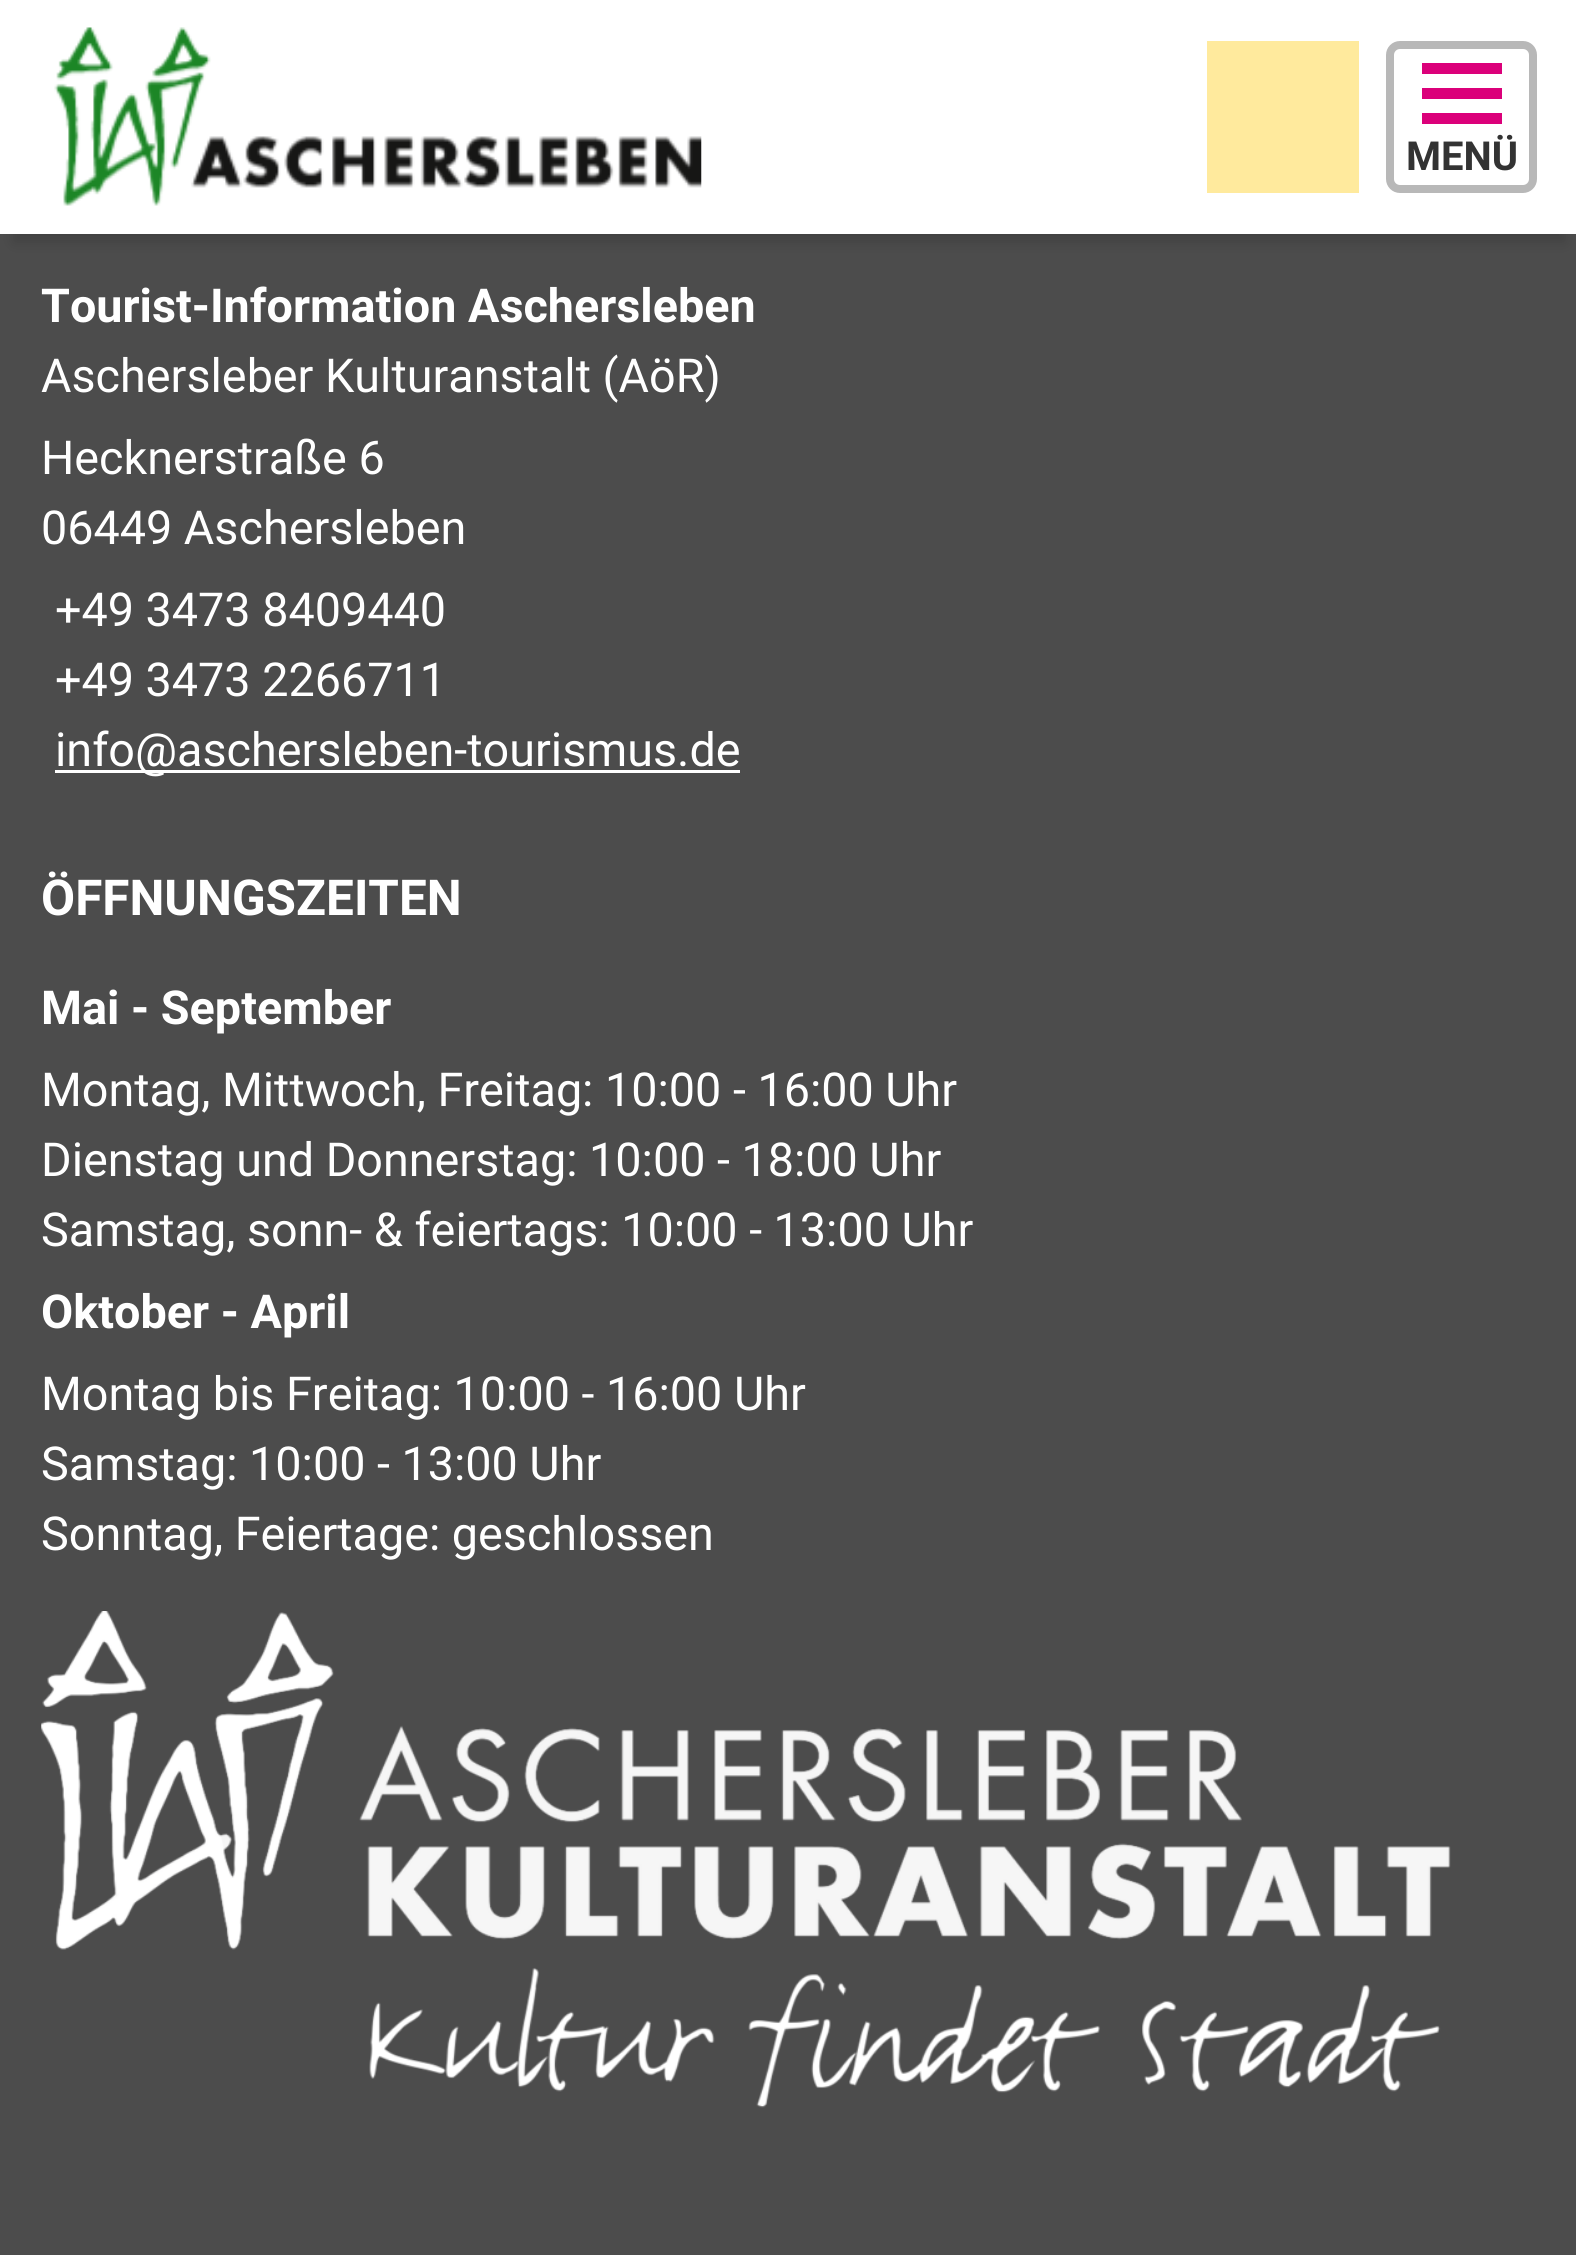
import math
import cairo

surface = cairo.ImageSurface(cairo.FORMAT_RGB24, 1576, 2255)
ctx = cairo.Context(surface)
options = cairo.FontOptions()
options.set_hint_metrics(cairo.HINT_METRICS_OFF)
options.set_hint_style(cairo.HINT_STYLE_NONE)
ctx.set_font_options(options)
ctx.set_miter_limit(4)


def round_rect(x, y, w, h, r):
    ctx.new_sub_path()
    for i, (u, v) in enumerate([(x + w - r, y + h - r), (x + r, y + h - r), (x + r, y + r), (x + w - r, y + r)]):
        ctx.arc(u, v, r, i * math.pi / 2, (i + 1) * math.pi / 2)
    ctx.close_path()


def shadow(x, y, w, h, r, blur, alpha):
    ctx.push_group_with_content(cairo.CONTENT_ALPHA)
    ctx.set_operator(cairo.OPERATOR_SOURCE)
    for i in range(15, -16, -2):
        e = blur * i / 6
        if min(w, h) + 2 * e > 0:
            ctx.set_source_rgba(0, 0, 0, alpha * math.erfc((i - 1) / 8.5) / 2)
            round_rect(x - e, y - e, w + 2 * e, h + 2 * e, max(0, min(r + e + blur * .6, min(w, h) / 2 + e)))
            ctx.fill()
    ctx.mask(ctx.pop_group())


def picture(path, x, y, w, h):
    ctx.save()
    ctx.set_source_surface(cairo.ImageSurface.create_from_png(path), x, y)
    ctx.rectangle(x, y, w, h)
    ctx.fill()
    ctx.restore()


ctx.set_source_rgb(0.298, 0.298, 0.298)
ctx.paint()
ctx.set_source_rgb(0, 0, 0)
shadow(14, 36, 1551, 206, 0, 7, 0.15)
ctx.set_source_rgb(1, 1, 1)
ctx.rectangle(0, 0, 1576, 234)
ctx.fill()
picture("img1.png", 54, 27, 648, 179)
ctx.set_source_rgba(1, 0.914, 0.592, 0.93)
ctx.rectangle(1207, 41, 152, 152)
ctx.fill()
round_rect(1390, 45, 143, 144, 10)
ctx.set_source_rgb(0.722, 0.722, 0.722)
ctx.set_line_width(8)
ctx.stroke()
ctx.set_source_rgb(0.859, 0, 0.478)
ctx.rectangle(1422, 63, 80, 11)
ctx.fill()
ctx.rectangle(1422, 88, 80, 11)
ctx.fill()
ctx.rectangle(1422, 113, 80, 11)
ctx.fill()
ctx.select_font_face("Roboto", cairo.FONT_SLANT_NORMAL, cairo.FONT_WEIGHT_BOLD)
ctx.set_font_size(40)
ctx.set_source_rgb(0.2, 0.2, 0.2)
ctx.move_to(1406, 170)
ctx.show_text("MENÜ")
ctx.set_font_size(46.75)
ctx.set_source_rgb(1, 1, 1)
ctx.move_to(41, 322)
ctx.show_text("Tourist-Information Aschersleben")
ctx.select_font_face("Roboto")
ctx.move_to(41, 392)
ctx.show_text("Aschersleber Kulturanstalt (AöR)")
ctx.move_to(41, 474)
ctx.show_text("Hecknerstraße 6")
ctx.move_to(41, 544)
ctx.show_text("06449 Aschersleben")
ctx.move_to(55, 626)
ctx.show_text("+49 3473 8409440")
ctx.move_to(55, 696)
ctx.show_text("+49 3473 2266711")
ctx.rectangle(55, 770, 685, 3)
ctx.fill()
ctx.move_to(55, 766)
ctx.show_text("info@aschersleben-tourismus.de")
ctx.select_font_face("Roboto", cairo.FONT_SLANT_NORMAL, cairo.FONT_WEIGHT_BOLD)
ctx.set_font_size(49.5)
ctx.move_to(41, 915)
ctx.show_text("ÖFFNUNGSZEITEN")
ctx.set_font_size(46.75)
ctx.move_to(41, 1024)
ctx.show_text("Mai - September")
ctx.select_font_face("Roboto")
ctx.move_to(41, 1106)
ctx.show_text("Montag, Mittwoch, Freitag: 10:00 - 16:00 Uhr")
ctx.move_to(41, 1176)
ctx.show_text("Dienstag und Donnerstag: 10:00 - 18:00 Uhr")
ctx.move_to(41, 1246)
ctx.show_text("Samstag, sonn- & feiertags: 10:00 - 13:00 Uhr")
ctx.select_font_face("Roboto", cairo.FONT_SLANT_NORMAL, cairo.FONT_WEIGHT_BOLD)
ctx.move_to(41, 1328)
ctx.show_text("Oktober - April")
ctx.select_font_face("Roboto")
ctx.move_to(41, 1410)
ctx.show_text("Montag bis Freitag: 10:00 - 16:00 Uhr")
ctx.move_to(41, 1480)
ctx.show_text("Samstag: 10:00 - 13:00 Uhr")
ctx.move_to(41, 1550)
ctx.show_text("Sonntag, Feiertage: geschlossen")
picture("img2.png", 41, 1611, 1410, 497)
surface.write_to_png("page.png")
